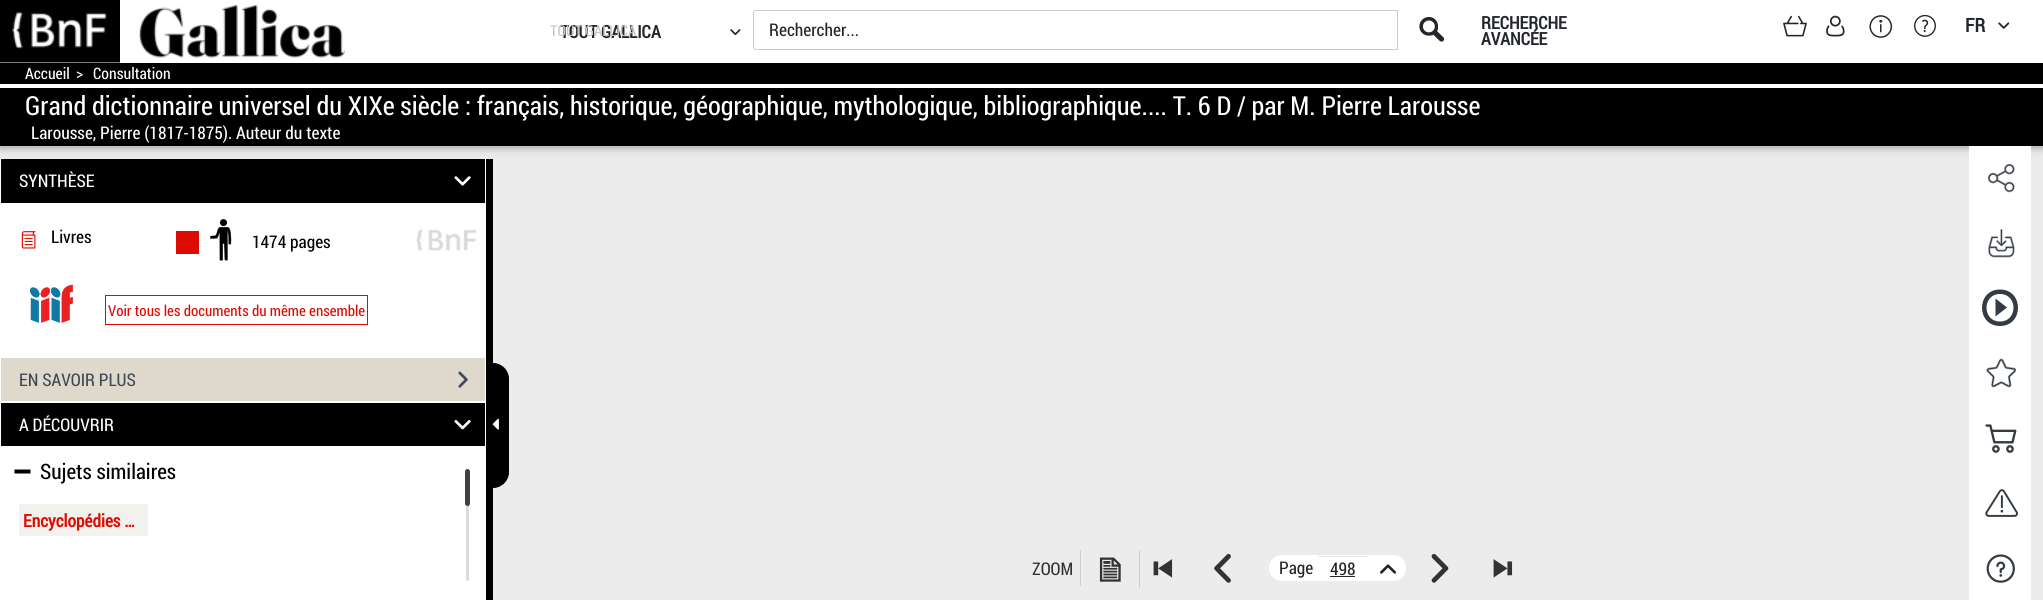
import math
import cairo

surface = cairo.ImageSurface(cairo.FORMAT_RGB24, 2043, 600)
ctx = cairo.Context(surface)
options = cairo.FontOptions()
options.set_hint_metrics(cairo.HINT_METRICS_OFF)
options.set_hint_style(cairo.HINT_STYLE_NONE)
ctx.set_font_options(options)
ctx.set_miter_limit(4)


def round_rect(x, y, w, h, r):
    ctx.new_sub_path()
    for i, (u, v) in enumerate([(x + w - r, y + h - r), (x + r, y + h - r), (x + r, y + r), (x + w - r, y + r)]):
        ctx.arc(u, v, r, i * math.pi / 2, (i + 1) * math.pi / 2)
    ctx.close_path()


def shadow(x, y, w, h, r, blur, alpha):
    ctx.push_group_with_content(cairo.CONTENT_ALPHA)
    ctx.set_operator(cairo.OPERATOR_SOURCE)
    for i in range(15, -16, -2):
        e = blur * i / 6
        if min(w, h) + 2 * e > 0:
            ctx.set_source_rgba(0, 0, 0, alpha * math.erfc((i - 1) / 8.5) / 2)
            round_rect(x - e, y - e, w + 2 * e, h + 2 * e, max(0, min(r + e + blur * .6, min(w, h) / 2 + e)))
            ctx.fill()
    ctx.mask(ctx.pop_group())


def picture(path, x, y, w, h):
    ctx.save()
    ctx.set_source_surface(cairo.ImageSurface.create_from_png(path), x, y)
    ctx.rectangle(x, y, w, h)
    ctx.fill()
    ctx.restore()


ctx.set_source_rgb(0.922, 0.922, 0.922)
ctx.paint()
ctx.set_source_rgb(0, 0, 0)
shadow(0, 65, 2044, 84, 0, 6, 0.12)
shadow(0, 65, 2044, 84, 0, 2.5, 0.16)
ctx.set_source_rgb(1, 1, 1)
ctx.rectangle(0, 0, 2043, 63)
ctx.fill()
picture("img1.png", 0, 0, 120, 63)
picture("img2.png", 138, 4, 207, 54)
ctx.select_font_face("Roboto Condensed", cairo.FONT_SLANT_NORMAL, cairo.FONT_WEIGHT_BOLD)
ctx.set_font_size(17.5)
ctx.set_source_rgb(0.137, 0.149, 0.165)
ctx.move_to(560, 38)
ctx.show_text("TOUT GALLICA")
ctx.select_font_face("Roboto Condensed")
ctx.set_font_size(15)
ctx.set_source_rgb(0.773, 0.776, 0.78)
ctx.move_to(550, 36)
ctx.show_text("TOUT GALLICA")
picture("img3.png", 730, 29, 11, 7)
ctx.new_path()
ctx.move_to(755.5, 10.5)
ctx.line_to(1397.5, 10.5)
ctx.line_to(1397.5, 49.5)
ctx.line_to(755.5, 49.5)
ctx.curve_to(754.5, 49.5, 753.5, 48.5, 753.5, 47.5)
ctx.line_to(753.5, 12.5)
ctx.curve_to(753.5, 11.5, 754.5, 10.5, 755.5, 10.5)
ctx.close_path()
ctx.set_source_rgb(0.8, 0.8, 0.8)
ctx.set_line_width(1)
ctx.stroke()
ctx.set_font_size(17.5)
ctx.set_source_rgb(0.137, 0.149, 0.165)
ctx.move_to(769, 36)
ctx.show_text("Rechercher...")
picture("img4.png", 1419, 17, 26, 25)
ctx.select_font_face("Roboto Condensed", cairo.FONT_SLANT_NORMAL, cairo.FONT_WEIGHT_BOLD)
ctx.move_to(1481, 29)
ctx.show_text("RECHERCHE")
ctx.move_to(1481, 45)
ctx.show_text("AVANCÉE")
picture("img5.png", 1783, 15, 24, 22)
picture("img6.png", 1826, 15, 19, 22)
picture("img7.png", 1869, 15, 24, 23)
picture("img8.png", 1914, 14, 22, 23)
ctx.set_font_size(19)
ctx.move_to(1965, 32)
ctx.show_text("FR")
picture("img9.png", 1998, 22, 12, 7)
ctx.set_source_rgb(0, 0, 0)
ctx.rectangle(0, 63, 2043, 83)
ctx.fill()
ctx.set_source_rgb(1, 1, 1)
ctx.rectangle(0, 84, 2043, 4)
ctx.fill()
ctx.select_font_face("Roboto Condensed")
ctx.set_font_size(15.75)
ctx.move_to(25, 79)
ctx.show_text("Accueil")
ctx.move_to(76, 79)
ctx.show_text(">")
ctx.move_to(93, 79)
ctx.show_text("Consultation")
ctx.set_font_size(26.25)
ctx.move_to(25, 115)
ctx.show_text("Grand dictionnaire universel du XIXe siècle : français, historique, géographique, mythologique, bibliographique.... T. 6 D / par M. Pierre Larousse")
ctx.set_font_size(17.5)
ctx.move_to(31, 139)
ctx.show_text("Larousse, Pierre (1817-1875). Auteur du texte")
ctx.set_source_rgb(0, 0, 0)
ctx.rectangle(486, 159, 7, 441)
ctx.fill()
ctx.set_source_rgb(1, 1, 1)
ctx.rectangle(0, 159, 486, 441)
ctx.fill()
ctx.set_source_rgb(0, 0, 0)
ctx.rectangle(1, 159, 484, 44)
ctx.fill()
ctx.set_source_rgb(1, 1, 1)
ctx.move_to(19, 187)
ctx.show_text("SYNTHÈSE")
picture("img10.png", 454, 176, 17, 10)
picture("img11.png", 21, 231, 15, 18)
ctx.set_source_rgb(0, 0, 0)
ctx.move_to(51, 243)
ctx.show_text("Livres")
ctx.set_source_rgb(0.867, 0.047, 0.012)
ctx.rectangle(176, 231, 23, 23)
ctx.fill()
picture("img12.png", 210, 219, 22, 42)
ctx.set_source_rgb(0, 0, 0)
ctx.move_to(252, 248)
ctx.show_text("1474 pages")
picture("img13.png", 416, 229, 61, 22)
picture("img14.png", 29, 284, 44, 39)
ctx.rectangle(105.5, 295.5, 262, 29)
ctx.set_source_rgb(0.867, 0.047, 0.012)
ctx.stroke()
ctx.set_font_size(15)
ctx.move_to(108, 316)
ctx.show_text("Voir tous les documents du même ensemble")
ctx.set_source_rgb(0.875, 0.851, 0.804)
ctx.rectangle(1, 358, 484, 43)
ctx.fill()
ctx.set_font_size(17.5)
ctx.set_source_rgb(0.251, 0.286, 0.325)
ctx.move_to(19, 386)
ctx.show_text("EN SAVOIR PLUS")
picture("img15.png", 458, 371, 10, 17)
ctx.set_source_rgb(0, 0, 0)
ctx.rectangle(1, 403, 484, 43)
ctx.fill()
ctx.set_source_rgb(1, 1, 1)
ctx.move_to(19, 431)
ctx.show_text("A DÉCOUVRIR")
picture("img16.png", 454, 420, 17, 10)
ctx.set_font_size(21.25)
ctx.set_source_rgb(0, 0, 0)
ctx.move_to(40, 479)
ctx.show_text("Sujets similaires")
ctx.new_path()
ctx.move_to(20.5, 473.5)
ctx.line_to(14.5, 473.5)
ctx.line_to(14.5, 469.5)
ctx.line_to(30.5, 469.5)
ctx.line_to(30.5, 473.5)
ctx.close_path()
ctx.fill()
ctx.set_source_rgb(0.949, 0.945, 0.929)
ctx.rectangle(19, 504, 129, 32)
ctx.fill()
ctx.select_font_face("Roboto Condensed", cairo.FONT_SLANT_NORMAL, cairo.FONT_WEIGHT_BOLD)
ctx.set_font_size(17.5)
ctx.set_source_rgb(0.867, 0.047, 0.012)
ctx.move_to(23, 527)
ctx.show_text("Encyclopédies …")
ctx.set_source_rgb(0.867, 0.859, 0.839)
round_rect(466, 469, 3, 112, 1.5)
ctx.fill()
ctx.set_source_rgb(0.251, 0.251, 0.251)
round_rect(465, 469, 5, 37, 2.5)
ctx.fill()
ctx.set_source_rgb(0, 0, 0)
ctx.new_path()
ctx.move_to(493.5, 363.5)
ctx.line_to(493, 363.5)
ctx.curve_to(501.5, 363.5, 508.5, 370.5, 508.5, 379)
ctx.line_to(508.5, 472)
ctx.curve_to(508.5, 480.5, 501.5, 487.5, 493, 487.5)
ctx.line_to(493.5, 487.5)
ctx.close_path()
ctx.fill_preserve()
ctx.stroke()
picture("img17.png", 492, 418, 7, 12)
ctx.set_source_rgb(0.8, 0.82, 0.816)
ctx.rectangle(1080, 550, 1, 36)
ctx.fill()
ctx.select_font_face("Roboto Condensed")
ctx.set_source_rgb(0.2, 0.2, 0.2)
ctx.move_to(1032, 575)
ctx.show_text("ZOOM")
ctx.set_source_rgb(0.8, 0.82, 0.816)
ctx.rectangle(1139, 550, 1, 38)
ctx.fill()
picture("img18.png", 1099, 557, 22, 25)
picture("img19.png", 1153, 559, 20, 19)
picture("img20.png", 1214, 553, 17, 30)
ctx.set_source_rgb(1, 1, 1)
round_rect(1269, 555, 137, 26, 13)
ctx.fill()
ctx.set_source_rgb(0.137, 0.149, 0.165)
ctx.move_to(1279, 574)
ctx.show_text("Page")
ctx.set_source_rgb(0.925, 0.925, 0.925)
ctx.rectangle(1318, 556, 50, 1)
ctx.fill()
ctx.set_source_rgb(0.137, 0.149, 0.165)
ctx.move_to(1330, 575)
ctx.show_text("498")
ctx.rectangle(1330, 576, 25, 1)
ctx.fill()
picture("img21.png", 1380, 564, 17, 10)
picture("img22.png", 1431, 553, 18, 30)
picture("img23.png", 1493, 559, 20, 19)
ctx.set_source_rgb(1, 1, 1)
ctx.rectangle(1969, 146, 62, 454)
ctx.fill()
picture("img24.png", 1988, 164, 27, 29)
picture("img25.png", 1988, 229, 27, 29)
ctx.set_source_rgb(0.204, 0.231, 0.263)
ctx.new_path()
ctx.move_to(1995.5, 316.5)
ctx.line_to(2007, 307.5)
ctx.line_to(1995.5, 298.5)
ctx.close_path()
ctx.move_to(2000, 289.5)
ctx.curve_to(1976, 289.5, 1976, 326, 2000, 326)
ctx.curve_to(2024, 326, 2024, 289.5, 2000, 289.5)
ctx.close_path()
ctx.move_to(2000, 321.5)
ctx.curve_to(1982, 321.5, 1982, 294, 2000, 294)
ctx.curve_to(2018, 294, 2018, 321.5, 2000, 321.5)
ctx.close_path()
ctx.fill()
picture("img26.png", 1986, 358, 31, 30)
picture("img27.png", 1985, 424, 32, 29)
picture("img28.png", 1985, 489, 33, 28)
picture("img29.png", 1986, 554, 29, 29)
surface.write_to_png("page.png")
